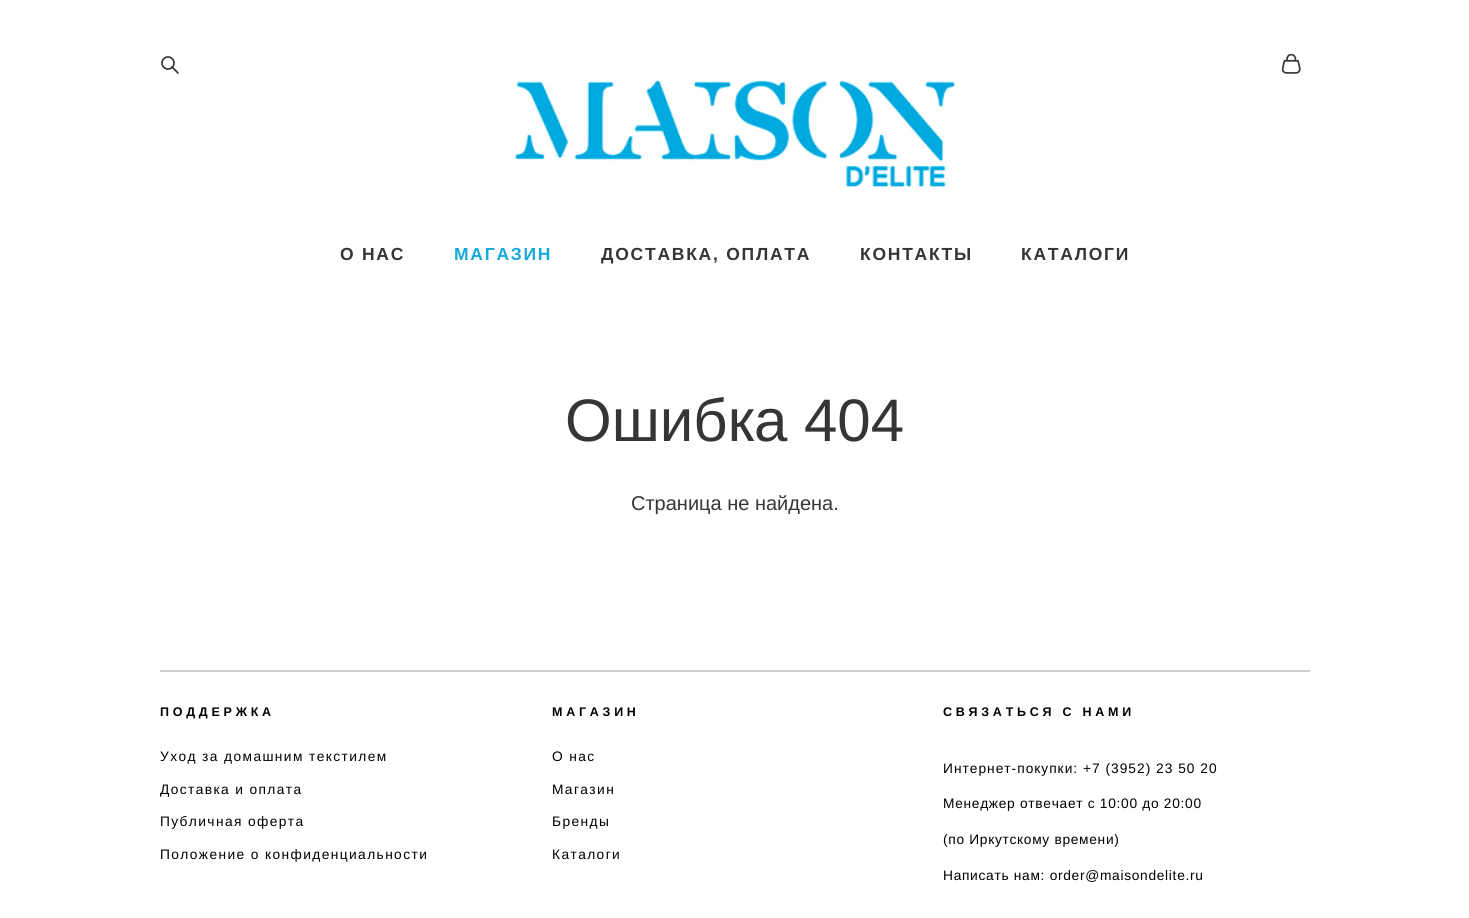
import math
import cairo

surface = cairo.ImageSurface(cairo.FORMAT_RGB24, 1469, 918)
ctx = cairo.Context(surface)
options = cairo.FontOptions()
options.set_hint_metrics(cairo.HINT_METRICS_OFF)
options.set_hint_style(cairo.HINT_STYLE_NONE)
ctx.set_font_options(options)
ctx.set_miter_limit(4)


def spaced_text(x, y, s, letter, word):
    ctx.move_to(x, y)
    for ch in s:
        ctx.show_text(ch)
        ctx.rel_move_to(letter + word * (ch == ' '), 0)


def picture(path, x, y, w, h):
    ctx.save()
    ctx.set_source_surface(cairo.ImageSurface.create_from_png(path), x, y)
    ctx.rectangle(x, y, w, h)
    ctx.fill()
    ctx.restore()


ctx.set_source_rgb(1, 1, 1)
ctx.paint()
ctx.arc(168, 63, 6, 0, 2 * math.pi)
ctx.set_source_rgb(0.208, 0.208, 0.208)
ctx.set_line_width(1.7)
ctx.stroke()
ctx.new_path()
ctx.move_to(172, 67)
ctx.line_to(178, 73)
ctx.set_line_cap(cairo.LINE_CAP_ROUND)
ctx.set_line_join(cairo.LINE_JOIN_ROUND)
ctx.stroke()
picture("img1.png", 1281, 54, 20, 20)
picture("img2.png", 514, 80, 442, 108)
ctx.select_font_face("Liberation Sans", cairo.FONT_SLANT_NORMAL, cairo.FONT_WEIGHT_BOLD)
ctx.set_font_size(17.5)
spaced_text(340, 260, "О НАС", 1.75, 0)
ctx.set_source_rgb(0.09, 0.659, 0.859)
spaced_text(454, 260, "МАГАЗИН", 1.75, 0)
ctx.set_source_rgb(0.208, 0.208, 0.208)
spaced_text(601, 260, "ДОСТАВКА, ОПЛАТА", 1.75, 0)
spaced_text(860, 260, "КОНТАКТЫ", 1.75, 0)
spaced_text(1021, 260, "КАТАЛОГИ", 1.75, 0)
ctx.select_font_face("Liberation Sans")
ctx.set_font_size(60)
ctx.move_to(565, 441)
ctx.show_text("Ошибка 404")
ctx.set_font_size(20)
ctx.move_to(631, 510)
ctx.show_text("Страница не найдена.")
ctx.set_source_rgb(0.8, 0.8, 0.8)
ctx.rectangle(160, 670, 1150, 2)
ctx.fill()
ctx.select_font_face("Liberation Sans", cairo.FONT_SLANT_NORMAL, cairo.FONT_WEIGHT_BOLD)
ctx.set_font_size(12.5)
ctx.set_source_rgb(0, 0, 0)
spaced_text(160, 716, "ПОДДЕРЖКА", 3.75, 0)
ctx.select_font_face("Liberation Sans")
ctx.set_font_size(13.75)
spaced_text(160, 761, "Уход за домашним текстилем", 1.4, 0)
spaced_text(160, 794, "Доставка и оплата", 1.4, 0)
spaced_text(160, 826, "Публичная оферта", 1.4, 0)
spaced_text(160, 859, "Положение о конфиденциальности", 1.4, 0)
ctx.select_font_face("Liberation Sans", cairo.FONT_SLANT_NORMAL, cairo.FONT_WEIGHT_BOLD)
ctx.set_font_size(12.5)
spaced_text(552, 716, "МАГАЗИН", 3.75, 0)
ctx.select_font_face("Liberation Sans")
ctx.set_font_size(13.75)
spaced_text(552, 761, "О нас", 1.4, 0)
spaced_text(552, 794, "Магазин", 1.4, 0)
spaced_text(552, 826, "Бренды", 1.4, 0)
spaced_text(552, 859, "Каталоги", 1.4, 0)
ctx.select_font_face("Liberation Sans", cairo.FONT_SLANT_NORMAL, cairo.FONT_WEIGHT_BOLD)
ctx.set_font_size(12.5)
spaced_text(943, 716, "СВЯЗАТЬСЯ С НАМИ", 3.75, 0)
ctx.select_font_face("Liberation Sans")
ctx.set_font_size(13.75)
spaced_text(943, 773, "Интернет-покупки: +7 (3952) 23 50 20", 1, 0)
spaced_text(943, 808, "Менеджер отвечает с 10:00 до 20:00", 0.7, 0)
spaced_text(943, 844, "(по Иркутскому времени)", 0.7, 0)
spaced_text(943, 880, "Написать нам: order@maisondelite.ru", 0.7, 0)
surface.write_to_png("page.png")
